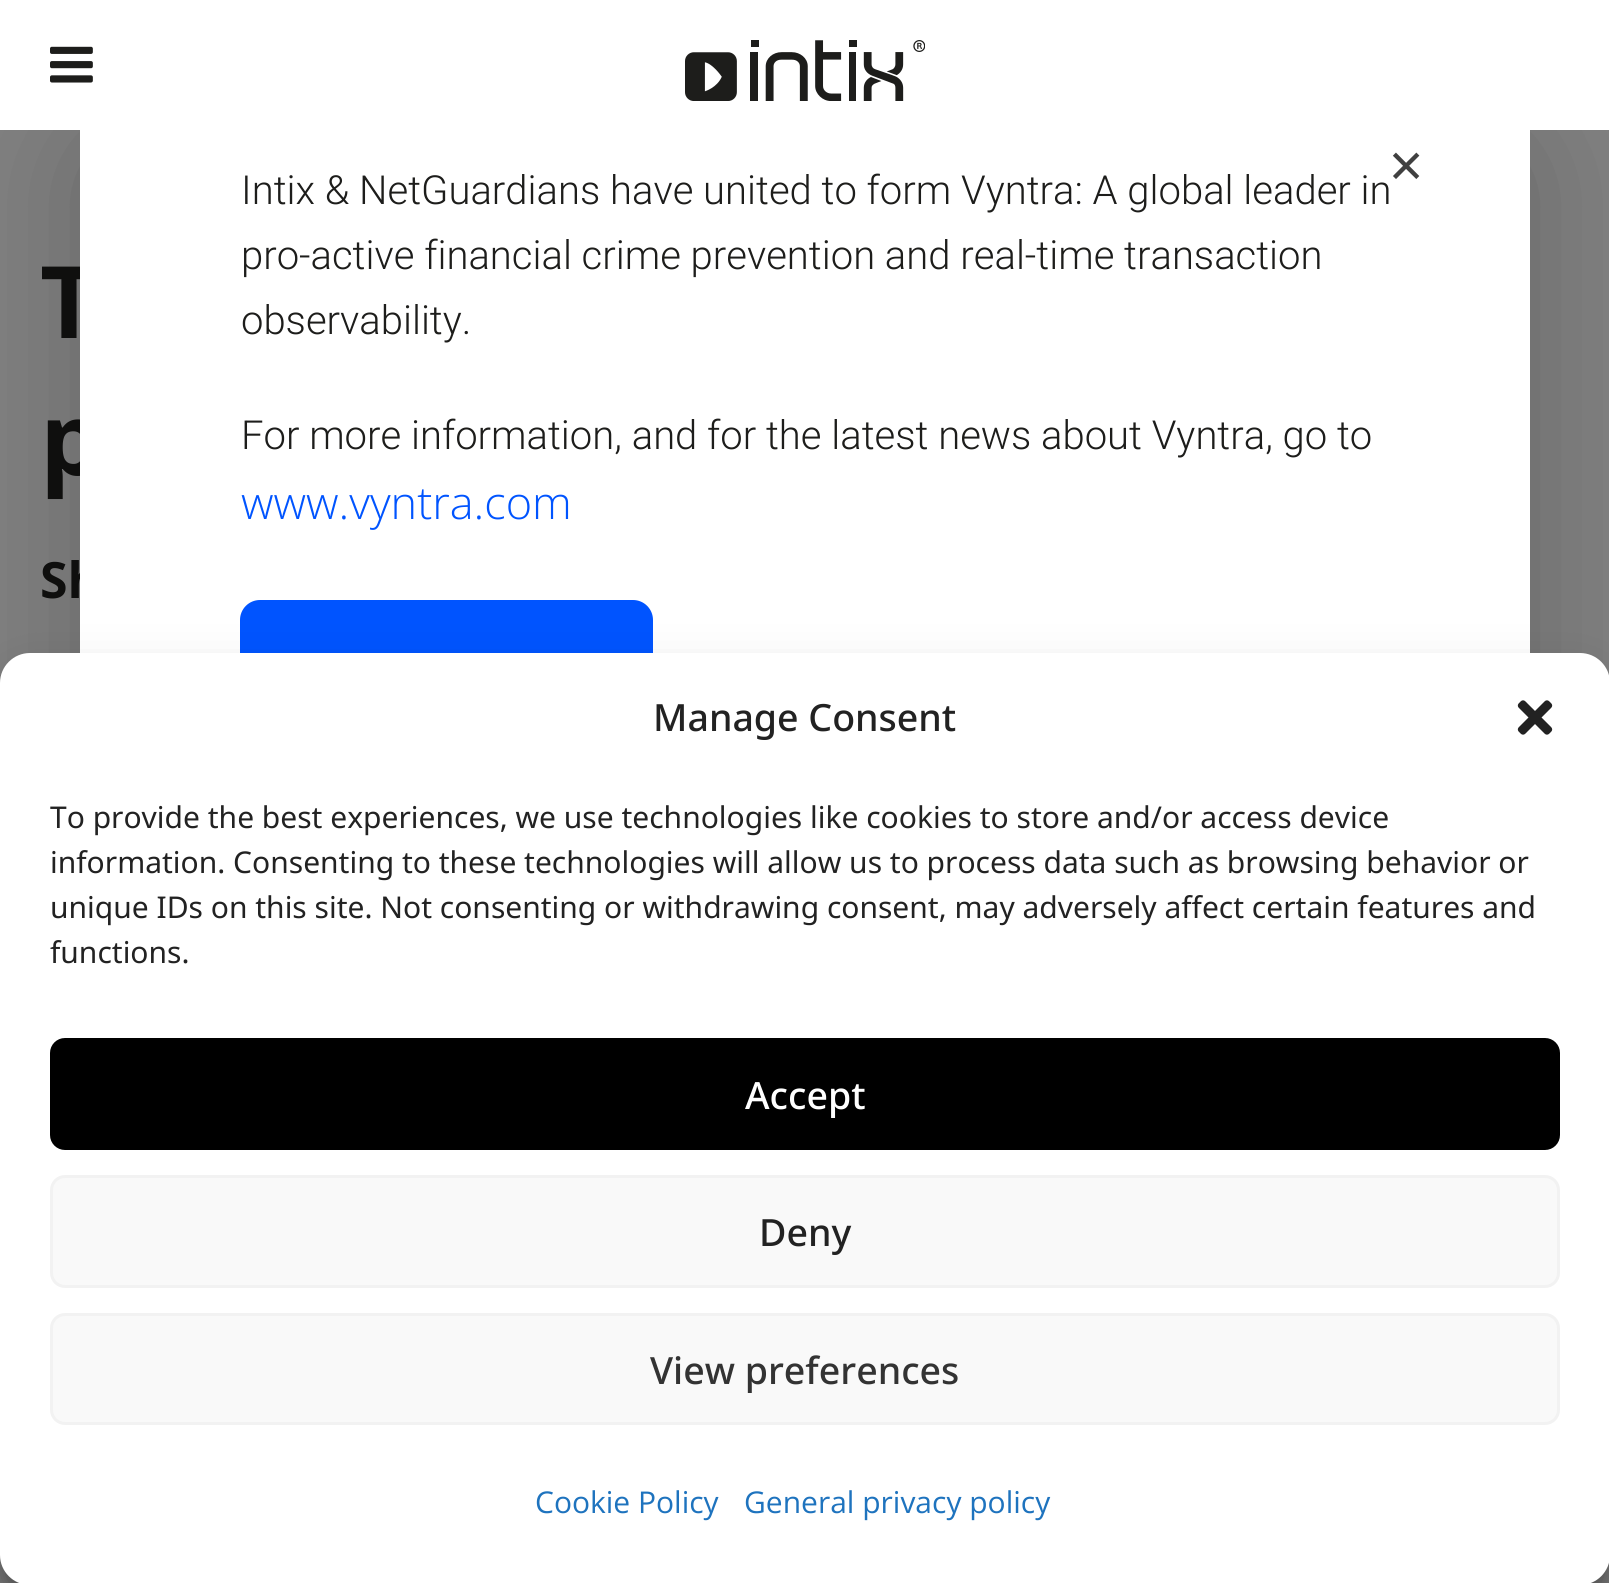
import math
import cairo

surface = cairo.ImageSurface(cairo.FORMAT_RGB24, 1609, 1583)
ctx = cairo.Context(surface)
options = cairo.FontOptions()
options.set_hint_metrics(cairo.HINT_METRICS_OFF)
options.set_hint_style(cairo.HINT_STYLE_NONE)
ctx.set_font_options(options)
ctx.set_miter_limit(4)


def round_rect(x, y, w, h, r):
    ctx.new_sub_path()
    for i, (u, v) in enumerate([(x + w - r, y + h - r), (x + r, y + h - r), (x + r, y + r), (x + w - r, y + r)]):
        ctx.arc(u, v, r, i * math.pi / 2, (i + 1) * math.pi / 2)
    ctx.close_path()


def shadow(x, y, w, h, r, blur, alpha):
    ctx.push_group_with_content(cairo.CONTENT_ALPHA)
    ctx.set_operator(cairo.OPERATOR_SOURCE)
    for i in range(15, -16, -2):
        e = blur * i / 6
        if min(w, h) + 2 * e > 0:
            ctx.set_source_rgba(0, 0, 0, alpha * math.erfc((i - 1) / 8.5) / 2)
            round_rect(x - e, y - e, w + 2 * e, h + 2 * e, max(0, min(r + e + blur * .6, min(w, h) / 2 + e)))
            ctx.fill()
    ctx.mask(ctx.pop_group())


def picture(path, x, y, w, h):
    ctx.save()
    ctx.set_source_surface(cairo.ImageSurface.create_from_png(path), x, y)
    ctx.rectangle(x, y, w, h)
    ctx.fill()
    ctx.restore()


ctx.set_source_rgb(0.502, 0.502, 0.502)
ctx.paint()
ctx.set_source_rgb(0, 0, 0)
shadow(80, 130, 1450, 1425, 40, 62.5, 0.2)
ctx.set_source_rgb(1, 1, 1)
ctx.rectangle(0, 0, 1609, 130)
ctx.fill()
picture("img1.png", 50, 46, 43, 37)
picture("img2.png", 685, 40, 240, 61)
ctx.select_font_face("Open Sans", cairo.FONT_SLANT_NORMAL, cairo.FONT_WEIGHT_BOLD)
ctx.set_font_size(100)
ctx.set_source_rgb(0.059, 0.059, 0.055)
ctx.move_to(40, 338)
ctx.show_text("T")
ctx.move_to(40, 475)
ctx.show_text("p")
ctx.set_font_size(50)
ctx.move_to(40, 598)
ctx.show_text("Sh")
ctx.set_source_rgb(1, 1, 1)
ctx.rectangle(80, 130, 1450, 523)
ctx.fill()
ctx.select_font_face("Noto Sans")
ctx.set_font_size(60)
ctx.set_source_rgb(0.251, 0.251, 0.251)
ctx.move_to(1389, 187)
ctx.show_text("×")
ctx.select_font_face("Roboto Light")
ctx.set_font_size(40)
ctx.set_source_rgb(0.114, 0.114, 0.106)
ctx.move_to(241, 204)
ctx.show_text("Intix & NetGuardians have united to form Vyntra: A global leader in")
ctx.move_to(241, 269)
ctx.show_text("pro-active financial crime prevention and real-time transaction")
ctx.move_to(241, 334)
ctx.show_text("observability.")
ctx.move_to(241, 449)
ctx.show_text("For more information, and for the latest news about Vyntra, go to")
ctx.select_font_face("Open Sans Light")
ctx.set_font_size(45)
ctx.set_source_rgb(0, 0.329, 1)
ctx.move_to(241, 519)
ctx.show_text("www.vyntra.com")
round_rect(240, 600, 413, 128, 20)
ctx.fill()
ctx.set_source_rgb(0, 0, 0)
shadow(0, 668, 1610, 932, 30, 7.5, 0.23)
shadow(0, 678, 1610, 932, 30, 25, 0.19)
ctx.set_source_rgb(1, 1, 1)
round_rect(0, 653, 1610, 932, 30)
ctx.fill()
ctx.select_font_face("Noto Sans Medium")
ctx.set_font_size(37.5)
ctx.set_source_rgb(0.133, 0.133, 0.133)
ctx.move_to(653, 731)
ctx.show_text("Manage Consent")
picture("img3.png", 1517, 700, 36, 35)
ctx.select_font_face("Noto Sans")
ctx.set_font_size(30)
ctx.move_to(50, 828)
ctx.show_text("To provide the best experiences, we use technologies like cookies to store and/or access device")
ctx.move_to(50, 873)
ctx.show_text("information. Consenting to these technologies will allow us to process data such as browsing behavior or")
ctx.move_to(50, 918)
ctx.show_text("unique IDs on this site. Not consenting or withdrawing consent, may adversely affect certain features and")
ctx.move_to(50, 963)
ctx.show_text("functions.")
ctx.set_source_rgb(0, 0, 0)
round_rect(51.5, 1039.5, 1507, 109, 13.5)
ctx.fill_preserve()
ctx.set_line_width(3)
ctx.stroke()
ctx.select_font_face("Noto Sans Medium")
ctx.set_font_size(37.5)
ctx.set_source_rgb(1, 1, 1)
ctx.move_to(745, 1109)
ctx.show_text("Accept")
ctx.set_source_rgb(0.976, 0.976, 0.976)
round_rect(51.5, 1176.5, 1507, 110, 13.5)
ctx.fill_preserve()
ctx.set_source_rgb(0.949, 0.949, 0.949)
ctx.stroke()
ctx.set_source_rgb(0.133, 0.133, 0.133)
ctx.move_to(759, 1246)
ctx.show_text("Deny")
ctx.set_source_rgb(0.976, 0.976, 0.976)
round_rect(51.5, 1314.5, 1507, 109, 13.5)
ctx.fill_preserve()
ctx.set_source_rgb(0.949, 0.949, 0.949)
ctx.stroke()
ctx.set_source_rgb(0.2, 0.2, 0.2)
ctx.move_to(650, 1384)
ctx.show_text("View preferences")
ctx.select_font_face("Open Sans")
ctx.set_font_size(30)
ctx.set_source_rgb(0.118, 0.451, 0.745)
ctx.move_to(535, 1513)
ctx.show_text("Cookie Policy")
ctx.move_to(744, 1513)
ctx.show_text("General privacy policy")
surface.write_to_png("page.png")
